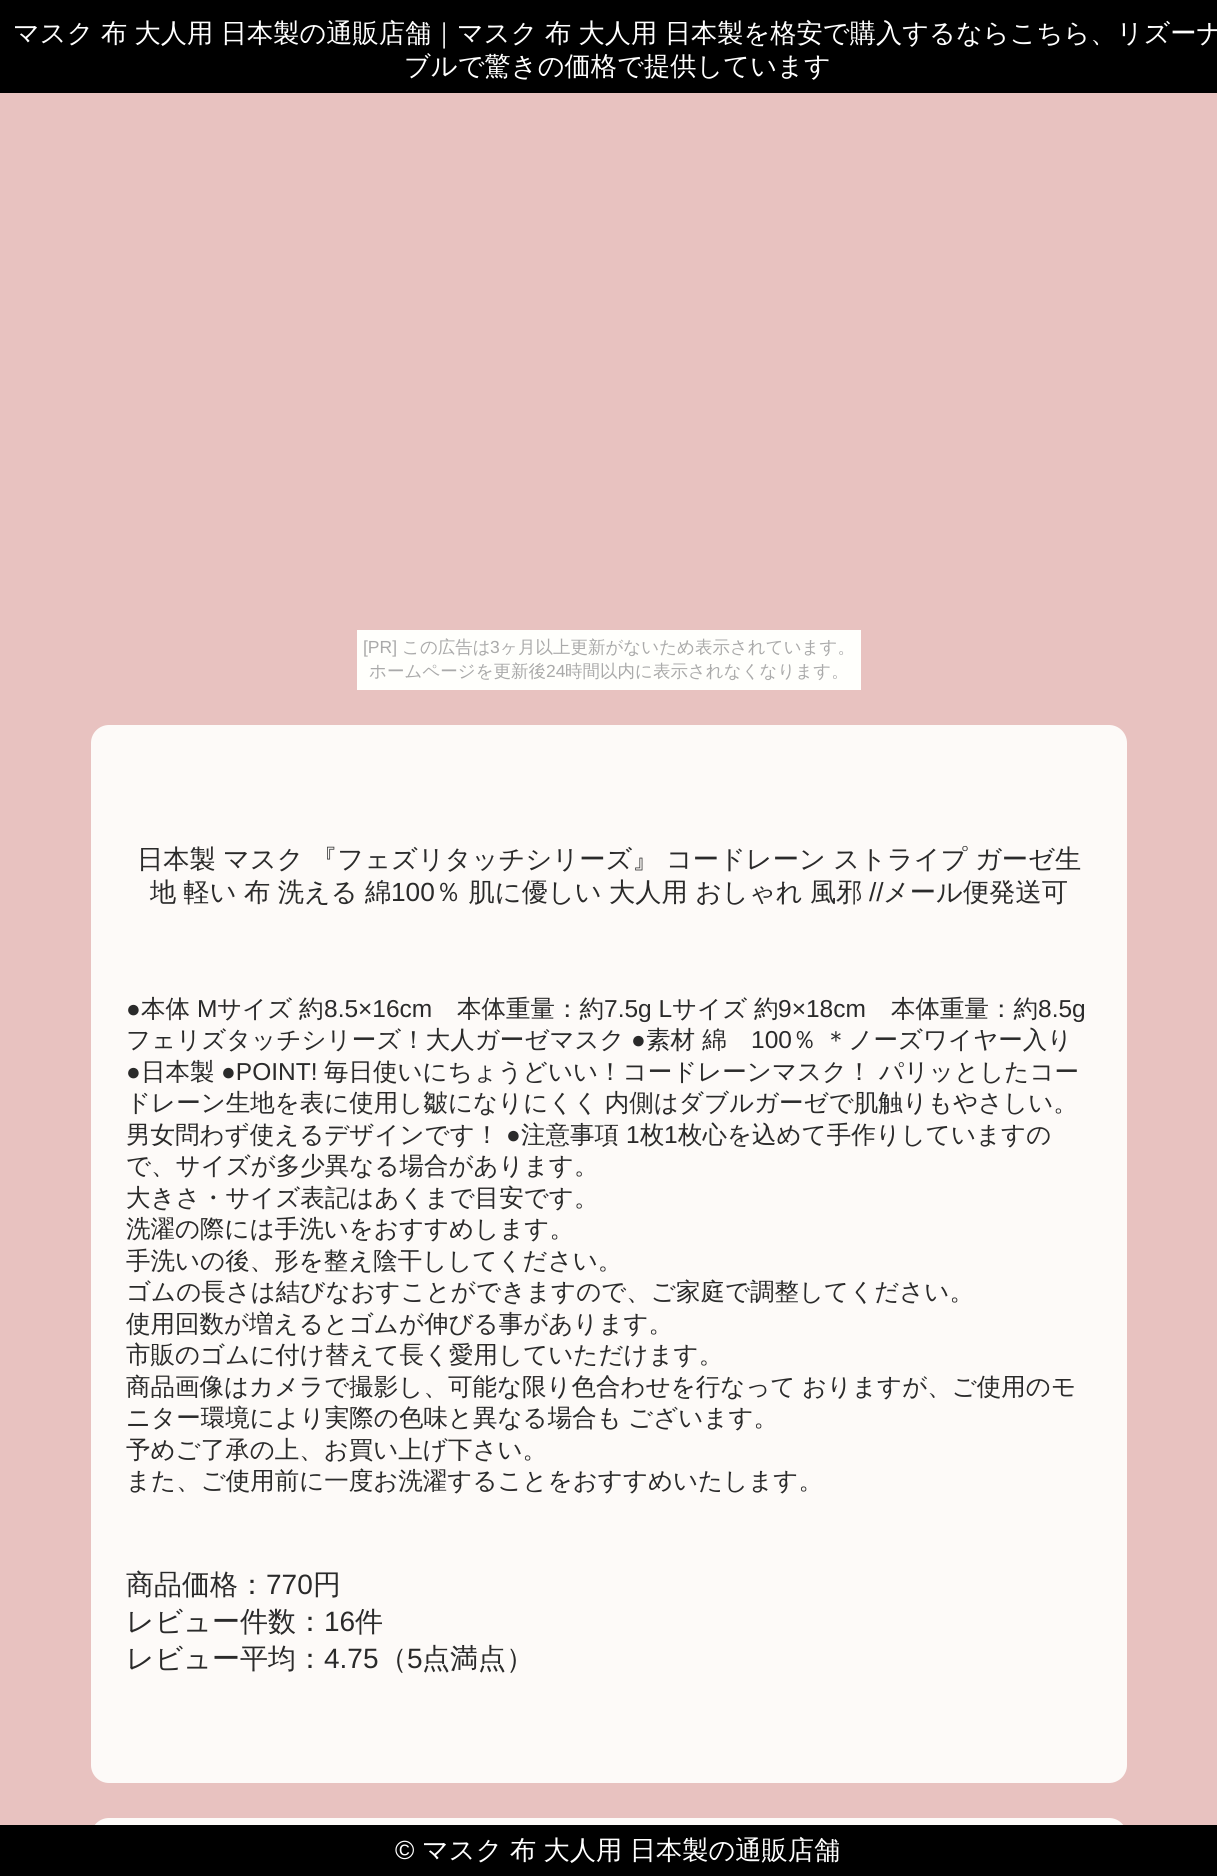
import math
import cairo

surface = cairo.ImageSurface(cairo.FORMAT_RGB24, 1217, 1876)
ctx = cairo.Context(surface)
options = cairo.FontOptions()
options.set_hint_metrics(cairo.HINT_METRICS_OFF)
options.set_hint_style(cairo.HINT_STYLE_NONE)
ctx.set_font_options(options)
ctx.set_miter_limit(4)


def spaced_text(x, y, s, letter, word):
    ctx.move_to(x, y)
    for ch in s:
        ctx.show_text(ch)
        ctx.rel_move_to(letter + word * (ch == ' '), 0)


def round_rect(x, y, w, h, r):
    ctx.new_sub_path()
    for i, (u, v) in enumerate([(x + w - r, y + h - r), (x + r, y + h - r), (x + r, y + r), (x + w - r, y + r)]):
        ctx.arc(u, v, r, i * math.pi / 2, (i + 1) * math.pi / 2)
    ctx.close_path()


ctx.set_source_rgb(0.91, 0.761, 0.753)
ctx.paint()
ctx.set_source_rgb(0, 0, 0)
ctx.rectangle(0, 0, 1217, 93)
ctx.fill()
ctx.select_font_face("WenQuanYi Zen Hei Medium")
ctx.set_font_size(26.25)
ctx.set_source_rgb(1, 1, 1)
spaced_text(13, 42, "マスク 布 大人用 日本製の通販店舗", 0, -0.5)
ctx.move_to(431, 42)
ctx.show_text("｜")
spaced_text(457, 42, "マスク 布 大人用 日本製を格安で購入するならこちら、リズーナ", 0, -0.5)
ctx.move_to(404, 75)
ctx.show_text("ブルで驚きの価格で提供しています")
ctx.set_source_rgb(1, 1, 0.988)
ctx.rectangle(357, 630, 504, 60)
ctx.fill()
ctx.select_font_face("Liberation Sans")
ctx.set_font_size(17.5)
ctx.set_source_rgb(0.667, 0.667, 0.667)
ctx.move_to(363, 653)
ctx.show_text("[PR]")
ctx.select_font_face("WenQuanYi Zen Hei Medium")
ctx.move_to(402, 653)
ctx.show_text("この広告は")
ctx.select_font_face("Liberation Sans")
ctx.move_to(490, 653)
ctx.show_text("3")
ctx.select_font_face("WenQuanYi Zen Hei Medium")
ctx.move_to(500, 653)
ctx.show_text("ヶ月以上更新がないため表示されています。")
ctx.move_to(369, 677)
ctx.show_text("ホームページを更新後")
ctx.select_font_face("Liberation Sans")
ctx.move_to(546, 677)
ctx.show_text("24")
ctx.select_font_face("WenQuanYi Zen Hei Medium")
ctx.move_to(565, 677)
ctx.show_text("時間以内に表示されなくなります。")
ctx.set_source_rgb(0.992, 0.98, 0.969)
round_rect(91, 725, 1036, 1058, 18)
ctx.fill()
ctx.set_font_size(26.25)
ctx.set_source_rgb(0.165, 0.165, 0.165)
spaced_text(137, 868, "日本製 マスク 『フェズリタッチシリーズ』 コードレーン ストライプ ガーゼ生", 0, -0.5)
spaced_text(150, 901, "地 軽い 布 洗える 綿", 0, -0.5)
ctx.select_font_face("Liberation Sans")
ctx.move_to(391, 901)
ctx.show_text("100")
ctx.select_font_face("WenQuanYi Zen Hei Medium")
spaced_text(435, 901, "％ 肌に優しい 大人用 おしゃれ 風邪", 0, -0.5)
ctx.select_font_face("Liberation Sans")
ctx.move_to(869, 901)
ctx.show_text("//")
ctx.select_font_face("WenQuanYi Zen Hei Medium")
ctx.move_to(883, 901)
ctx.show_text("メール便発送可")
ctx.select_font_face("Liberation Sans")
ctx.set_font_size(24.5)
ctx.move_to(126, 1017)
ctx.show_text("●")
ctx.select_font_face("WenQuanYi Zen Hei Medium")
ctx.move_to(141, 1017)
ctx.show_text("本体")
ctx.select_font_face("Liberation Sans")
ctx.move_to(197, 1017)
ctx.show_text("M")
ctx.select_font_face("WenQuanYi Zen Hei Medium")
ctx.move_to(217, 1017)
ctx.show_text("サイズ")
ctx.move_to(299, 1017)
ctx.show_text("約")
ctx.select_font_face("Liberation Sans")
ctx.move_to(324, 1017)
ctx.show_text("8.5×16cm")
ctx.select_font_face("WenQuanYi Zen Hei Medium")
ctx.move_to(457, 1017)
ctx.show_text("本体重量：約")
ctx.select_font_face("Liberation Sans")
ctx.move_to(604, 1017)
ctx.show_text("7.5g L")
ctx.select_font_face("WenQuanYi Zen Hei Medium")
ctx.move_to(672, 1017)
ctx.show_text("サイズ")
ctx.move_to(754, 1017)
ctx.show_text("約")
ctx.select_font_face("Liberation Sans")
ctx.move_to(778, 1017)
ctx.show_text("9×18cm")
ctx.select_font_face("WenQuanYi Zen Hei Medium")
ctx.move_to(891, 1017)
ctx.show_text("本体重量：約")
ctx.select_font_face("Liberation Sans")
ctx.move_to(1038, 1017)
ctx.show_text("8.5g")
ctx.select_font_face("WenQuanYi Zen Hei Medium")
ctx.move_to(126, 1048)
ctx.show_text("フェリズタッチシリーズ！大人ガーゼマスク")
ctx.select_font_face("Liberation Sans")
ctx.move_to(631, 1048)
ctx.show_text("●")
ctx.select_font_face("WenQuanYi Zen Hei Medium")
ctx.move_to(646, 1048)
ctx.show_text("素材 綿")
ctx.select_font_face("Liberation Sans")
ctx.move_to(751, 1048)
ctx.show_text("100")
ctx.select_font_face("WenQuanYi Zen Hei Medium")
ctx.move_to(792, 1048)
ctx.show_text("％ ＊ノーズワイヤー入り")
ctx.select_font_face("Liberation Sans")
ctx.move_to(126, 1080)
ctx.show_text("●")
ctx.select_font_face("WenQuanYi Zen Hei Medium")
ctx.move_to(141, 1080)
ctx.show_text("日本製")
ctx.select_font_face("Liberation Sans")
ctx.move_to(221, 1080)
ctx.show_text("●POINT!")
ctx.select_font_face("WenQuanYi Zen Hei Medium")
ctx.move_to(324, 1080)
ctx.show_text("毎日使いにちょうどいい！コードレーンマスク！ パリッとしたコー")
spaced_text(126, 1111, "ドレーン生地を表に使用し皺になりにくく 内側はダブルガーゼで肌触りもやさしい。", 0, -1)
ctx.move_to(126, 1143)
ctx.show_text("男女問わず使えるデザインです！")
ctx.select_font_face("Liberation Sans")
ctx.move_to(506, 1143)
ctx.show_text("●")
ctx.select_font_face("WenQuanYi Zen Hei Medium")
ctx.move_to(521, 1143)
ctx.show_text("注意事項")
ctx.select_font_face("Liberation Sans")
ctx.move_to(626, 1143)
ctx.show_text("1")
ctx.select_font_face("WenQuanYi Zen Hei Medium")
ctx.move_to(640, 1143)
ctx.show_text("枚")
ctx.select_font_face("Liberation Sans")
ctx.move_to(664, 1143)
ctx.show_text("1")
ctx.select_font_face("WenQuanYi Zen Hei Medium")
ctx.move_to(678, 1143)
ctx.show_text("枚心を込めて手作りしていますの")
ctx.move_to(126, 1174)
ctx.show_text("で、サイズが多少異なる場合があります。")
ctx.move_to(126, 1206)
ctx.show_text("大きさ・サイズ表記はあくまで目安です。")
ctx.move_to(126, 1237)
ctx.show_text("洗濯の際には手洗いをおすすめします。")
ctx.move_to(126, 1269)
ctx.show_text("手洗いの後、形を整え陰干ししてください。")
ctx.move_to(126, 1300)
ctx.show_text("ゴムの長さは結びなおすことができますので、ご家庭で調整してください。")
ctx.move_to(126, 1332)
ctx.show_text("使用回数が増えるとゴムが伸びる事があります。")
ctx.move_to(126, 1363)
ctx.show_text("市販のゴムに付け替えて長く愛用していただけます。")
spaced_text(126, 1395, "商品画像はカメラで撮影し、可能な限り色合わせを行なって おりますが、ご使用のモ", 0, -1)
spaced_text(126, 1426, "ニター環境により実際の色味と異なる場合も ございます。", 0, -1)
ctx.move_to(126, 1458)
ctx.show_text("予めご了承の上、お買い上げ下さい。")
ctx.move_to(126, 1489)
ctx.show_text("また、ご使用前に一度お洗濯することをおすすめいたします。")
ctx.set_font_size(28)
ctx.move_to(126, 1594)
ctx.show_text("商品価格：")
ctx.select_font_face("Liberation Sans")
ctx.move_to(266, 1594)
ctx.show_text("770")
ctx.select_font_face("WenQuanYi Zen Hei Medium")
ctx.move_to(313, 1594)
ctx.show_text("円")
ctx.move_to(126, 1631)
ctx.show_text("レビュー件数：")
ctx.select_font_face("Liberation Sans")
ctx.move_to(324, 1631)
ctx.show_text("16")
ctx.select_font_face("WenQuanYi Zen Hei Medium")
ctx.move_to(355, 1631)
ctx.show_text("件")
ctx.move_to(126, 1668)
ctx.show_text("レビュー平均：")
ctx.select_font_face("Liberation Sans")
ctx.move_to(324, 1668)
ctx.show_text("4.75")
ctx.select_font_face("WenQuanYi Zen Hei Medium")
ctx.move_to(379, 1668)
ctx.show_text("（")
ctx.select_font_face("Liberation Sans")
ctx.move_to(407, 1668)
ctx.show_text("5")
ctx.select_font_face("WenQuanYi Zen Hei Medium")
ctx.move_to(422, 1668)
ctx.show_text("点満点）")
ctx.set_source_rgb(0.992, 0.98, 0.969)
round_rect(91, 1818, 1036, 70, 18)
ctx.fill()
ctx.set_source_rgb(0, 0, 0)
ctx.rectangle(0, 1825, 1217, 51)
ctx.fill()
ctx.select_font_face("Liberation Sans")
ctx.set_font_size(26.25)
ctx.set_source_rgb(1, 1, 1)
ctx.move_to(395, 1859)
ctx.show_text("©")
ctx.select_font_face("WenQuanYi Zen Hei Medium")
spaced_text(422, 1859, "マスク 布 大人用 日本製の通販店舗", 0, -0.5)
surface.write_to_png("page.png")
